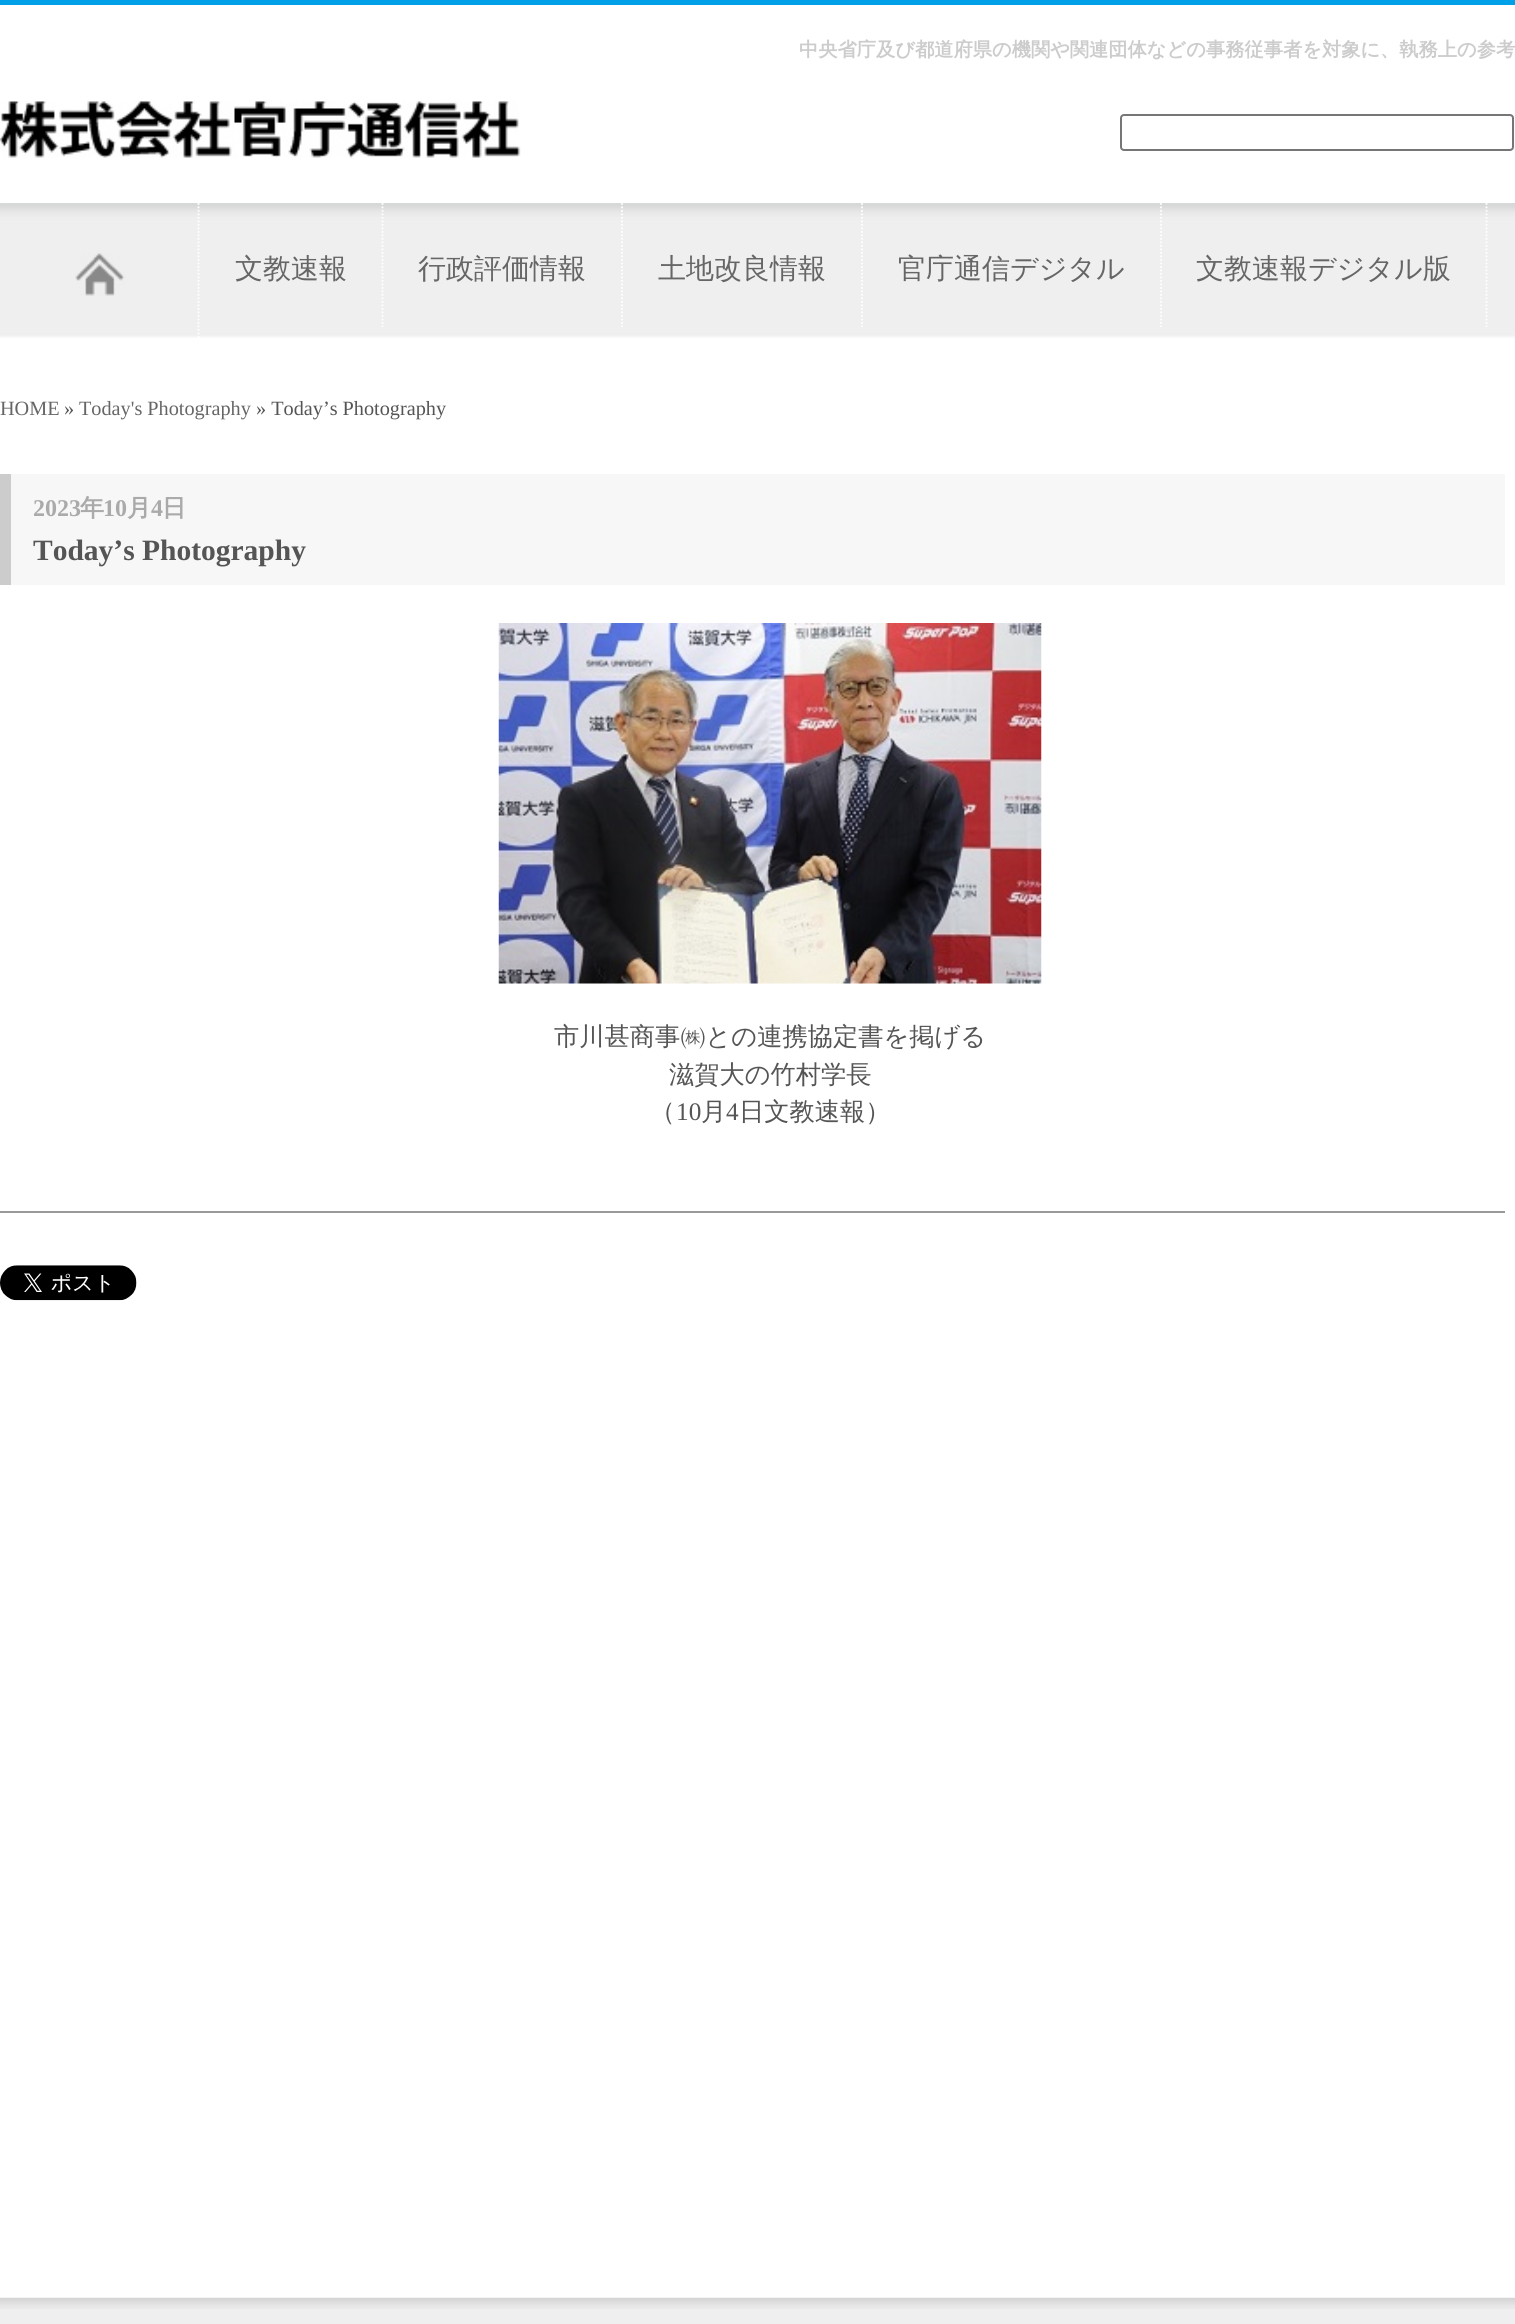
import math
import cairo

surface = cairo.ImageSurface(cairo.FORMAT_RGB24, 1515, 2324)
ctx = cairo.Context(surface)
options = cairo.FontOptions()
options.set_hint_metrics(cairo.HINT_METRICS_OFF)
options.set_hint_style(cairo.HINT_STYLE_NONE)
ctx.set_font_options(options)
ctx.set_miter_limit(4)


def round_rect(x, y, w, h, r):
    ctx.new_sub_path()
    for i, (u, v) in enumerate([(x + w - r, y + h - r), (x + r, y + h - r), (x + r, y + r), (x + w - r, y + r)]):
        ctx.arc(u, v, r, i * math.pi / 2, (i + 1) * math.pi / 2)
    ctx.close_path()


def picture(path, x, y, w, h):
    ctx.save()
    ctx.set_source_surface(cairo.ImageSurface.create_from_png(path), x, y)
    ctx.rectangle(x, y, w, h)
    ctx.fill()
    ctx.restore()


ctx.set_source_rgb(1, 1, 1)
ctx.paint()
ctx.set_source_rgb(0, 0.627, 0.914)
ctx.rectangle(0, 0, 1515, 5)
ctx.fill()
ctx.select_font_face("WenQuanYi Zen Hei", cairo.FONT_SLANT_NORMAL, cairo.FONT_WEIGHT_BOLD)
ctx.set_font_size(19.25)
ctx.set_source_rgb(0.8, 0.8, 0.8)
ctx.move_to(799, 56)
ctx.show_text("中央省庁及び都道府県の機関や関連団体などの事務従事者を対象に、執務上の参考")
picture("img1.png", 0, 101, 521, 57)
round_rect(1121, 115, 392, 35, 3)
ctx.set_source_rgb(0.463, 0.463, 0.463)
ctx.stroke()
picture("img2.png", 0, 203, 1515, 135)
ctx.save()
ctx.rectangle(0, 203, 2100, 135)
ctx.clip()
ctx.new_path()
ctx.move_to(198.5, 203)
ctx.line_to(198.5, 341)
ctx.set_source_rgb(1, 1, 1)
ctx.set_line_width(1.8)
ctx.set_dash([1.75, 1.75])
ctx.stroke()
ctx.restore()
picture("img3.png", 75, 253, 50, 43)
ctx.new_path()
ctx.move_to(382.5, 203)
ctx.line_to(382.5, 327)
ctx.set_source_rgb(1, 1, 1)
ctx.set_line_width(1.8)
ctx.set_dash([1.75, 1.75])
ctx.stroke()
ctx.select_font_face("WenQuanYi Zen Hei Medium")
ctx.set_font_size(28)
ctx.set_source_rgb(0.4, 0.4, 0.4)
ctx.move_to(235, 278)
ctx.show_text("文教速報")
ctx.new_path()
ctx.move_to(622, 203)
ctx.line_to(622, 327)
ctx.set_source_rgb(1, 1, 1)
ctx.stroke()
ctx.set_source_rgb(0.4, 0.4, 0.4)
ctx.move_to(418, 278)
ctx.show_text("行政評価情報")
ctx.new_path()
ctx.move_to(862, 203)
ctx.line_to(862, 327)
ctx.set_source_rgb(1, 1, 1)
ctx.stroke()
ctx.set_source_rgb(0.4, 0.4, 0.4)
ctx.move_to(658, 278)
ctx.show_text("土地改良情報")
ctx.new_path()
ctx.move_to(1161, 203)
ctx.line_to(1161, 327)
ctx.set_source_rgb(1, 1, 1)
ctx.stroke()
ctx.set_source_rgb(0.4, 0.4, 0.4)
ctx.move_to(898, 278)
ctx.show_text("官庁通信デジタル")
ctx.new_path()
ctx.move_to(1486.5, 203)
ctx.line_to(1486.5, 327)
ctx.set_source_rgb(1, 1, 1)
ctx.stroke()
ctx.set_source_rgb(0.4, 0.4, 0.4)
ctx.move_to(1196, 278)
ctx.show_text("文教速報デジタル版")
ctx.select_font_face("Liberation Serif")
ctx.set_font_size(20.25)
ctx.move_to(0, 415)
ctx.show_text("HOME")
ctx.set_source_rgb(0.333, 0.333, 0.333)
ctx.move_to(64, 415)
ctx.show_text("»")
ctx.set_source_rgb(0.4, 0.4, 0.4)
ctx.move_to(79, 415)
ctx.show_text("Today's Photography")
ctx.set_source_rgb(0.333, 0.333, 0.333)
ctx.move_to(256, 415)
ctx.show_text("» Today’s Photography")
ctx.set_source_rgb(0.965, 0.965, 0.965)
ctx.rectangle(11, 474, 1494, 111)
ctx.fill()
ctx.set_source_rgb(0.8, 0.8, 0.8)
ctx.rectangle(0, 474, 11, 111)
ctx.fill()
ctx.select_font_face("Liberation Serif", cairo.FONT_SLANT_NORMAL, cairo.FONT_WEIGHT_BOLD)
ctx.set_font_size(24)
ctx.set_source_rgb(0.667, 0.667, 0.667)
ctx.move_to(33, 516)
ctx.show_text("2023")
ctx.select_font_face("WenQuanYi Zen Hei", cairo.FONT_SLANT_NORMAL, cairo.FONT_WEIGHT_BOLD)
ctx.move_to(80, 516)
ctx.show_text("年")
ctx.select_font_face("Liberation Serif", cairo.FONT_SLANT_NORMAL, cairo.FONT_WEIGHT_BOLD)
ctx.move_to(103, 516)
ctx.show_text("10")
ctx.select_font_face("WenQuanYi Zen Hei", cairo.FONT_SLANT_NORMAL, cairo.FONT_WEIGHT_BOLD)
ctx.move_to(127, 516)
ctx.show_text("月")
ctx.select_font_face("Liberation Serif", cairo.FONT_SLANT_NORMAL, cairo.FONT_WEIGHT_BOLD)
ctx.move_to(151, 516)
ctx.show_text("4")
ctx.select_font_face("WenQuanYi Zen Hei", cairo.FONT_SLANT_NORMAL, cairo.FONT_WEIGHT_BOLD)
ctx.move_to(162, 516)
ctx.show_text("日")
ctx.select_font_face("Liberation Serif", cairo.FONT_SLANT_NORMAL, cairo.FONT_WEIGHT_BOLD)
ctx.set_font_size(29.5)
ctx.set_source_rgb(0.333, 0.333, 0.333)
ctx.move_to(33, 560)
ctx.show_text("Today’s Photography")
picture("img4.png", 498, 623, 544, 361)
ctx.select_font_face("WenQuanYi Zen Hei Medium")
ctx.set_font_size(25.25)
ctx.move_to(554, 1045)
ctx.show_text("市川甚商事㈱との連携協定書を掲げる")
ctx.move_to(669, 1083)
ctx.show_text("滋賀大の竹村学長")
ctx.move_to(650, 1120)
ctx.show_text("（")
ctx.select_font_face("Liberation Serif")
ctx.move_to(676, 1120)
ctx.show_text("10")
ctx.select_font_face("WenQuanYi Zen Hei Medium")
ctx.move_to(701, 1120)
ctx.show_text("月")
ctx.select_font_face("Liberation Serif")
ctx.move_to(726, 1120)
ctx.show_text("4")
ctx.select_font_face("WenQuanYi Zen Hei Medium")
ctx.move_to(739, 1120)
ctx.show_text("日文教速報）")
ctx.set_source_rgb(0.6, 0.6, 0.6)
ctx.rectangle(0, 1211, 1505, 2)
ctx.fill()
picture("img5.png", 0, 1265, 137, 36)
ctx.set_source_rgb(0.937, 0.937, 0.937)
ctx.rectangle(0, 2309, 1515, 15)
ctx.fill()
picture("img6.png", 0, 2297, 1515, 12)
surface.write_to_png("page.png")
